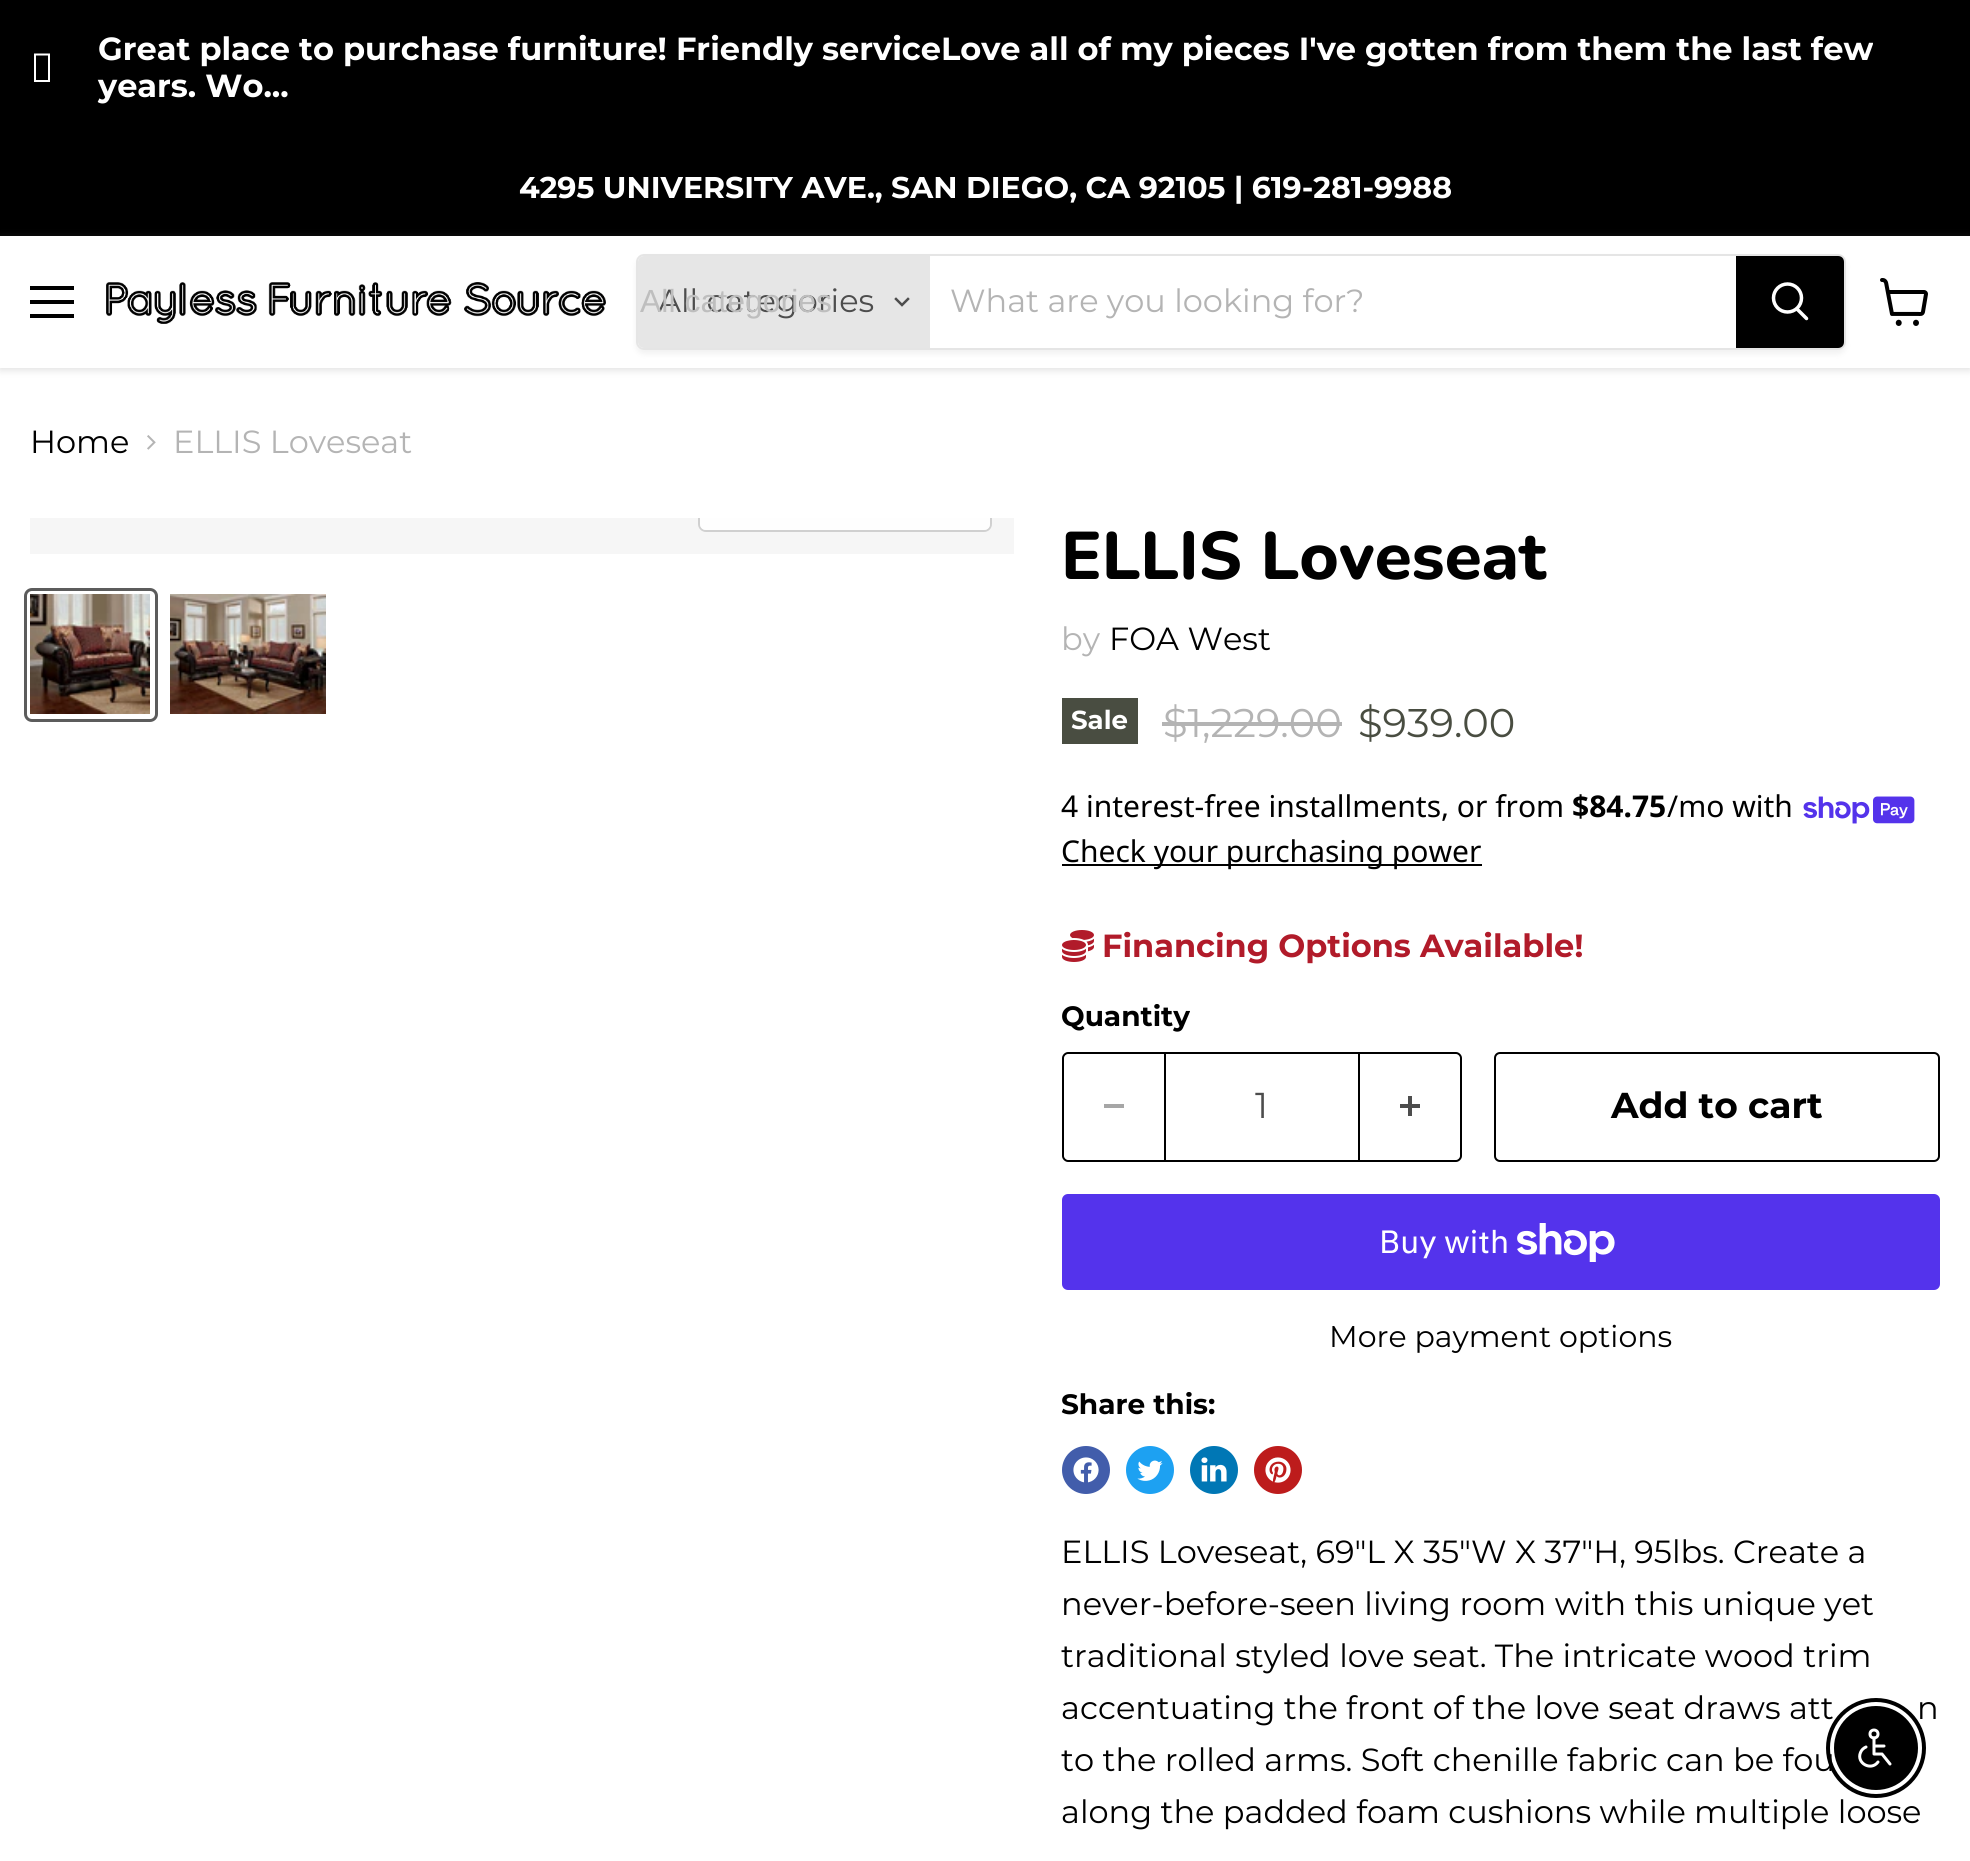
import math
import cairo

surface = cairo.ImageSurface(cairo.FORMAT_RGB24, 1970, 1861)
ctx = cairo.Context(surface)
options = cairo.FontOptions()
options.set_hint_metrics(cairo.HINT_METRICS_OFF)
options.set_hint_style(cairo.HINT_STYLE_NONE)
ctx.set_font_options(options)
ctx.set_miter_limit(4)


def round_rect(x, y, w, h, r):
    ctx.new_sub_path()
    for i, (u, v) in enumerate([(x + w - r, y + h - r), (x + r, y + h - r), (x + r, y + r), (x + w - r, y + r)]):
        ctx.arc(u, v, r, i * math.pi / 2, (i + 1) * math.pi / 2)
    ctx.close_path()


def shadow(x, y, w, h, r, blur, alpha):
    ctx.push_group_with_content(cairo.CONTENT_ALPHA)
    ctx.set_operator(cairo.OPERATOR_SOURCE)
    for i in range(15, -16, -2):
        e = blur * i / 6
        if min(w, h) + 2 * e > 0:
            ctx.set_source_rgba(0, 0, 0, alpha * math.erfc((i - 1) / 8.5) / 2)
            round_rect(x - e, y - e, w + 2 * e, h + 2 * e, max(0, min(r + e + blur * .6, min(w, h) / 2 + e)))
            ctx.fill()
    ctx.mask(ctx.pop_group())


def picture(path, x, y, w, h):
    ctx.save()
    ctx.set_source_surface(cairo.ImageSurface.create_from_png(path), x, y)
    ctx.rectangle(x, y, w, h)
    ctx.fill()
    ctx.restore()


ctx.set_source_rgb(1, 1, 1)
ctx.paint()
ctx.set_source_rgb(0, 0, 0)
ctx.rectangle(0, 0, 1970, 236)
ctx.fill()
ctx.set_source_rgb(1, 1, 1)
ctx.new_path()
ctx.move_to(34, 82)
ctx.line_to(34, 53.5)
ctx.line_to(50, 53.5)
ctx.line_to(50, 82)
ctx.close_path()
ctx.move_to(36, 80)
ctx.line_to(48, 80)
ctx.line_to(48, 55.5)
ctx.line_to(36, 55.5)
ctx.close_path()
ctx.fill()
ctx.select_font_face("Montserrat", cairo.FONT_SLANT_NORMAL, cairo.FONT_WEIGHT_BOLD)
ctx.set_font_size(32)
ctx.move_to(98, 60)
ctx.show_text("Great place to purchase furniture! Friendly serviceLove all of my pieces I've gotten from them the last few")
ctx.move_to(98, 97)
ctx.show_text("years. Wo...")
ctx.set_font_size(30)
ctx.move_to(519, 198)
ctx.show_text("4295 UNIVERSITY AVE., SAN DIEGO, CA 92105 | 619-281-9988")
ctx.save()
ctx.set_fill_rule(cairo.FILL_RULE_EVEN_ODD)
ctx.new_path()
ctx.move_to(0, 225)
ctx.line_to(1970, 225)
ctx.line_to(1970, 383)
ctx.line_to(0, 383)
ctx.close_path()
ctx.move_to(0, 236)
ctx.line_to(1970, 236)
ctx.line_to(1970, 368)
ctx.line_to(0, 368)
ctx.close_path()
ctx.clip()
ctx.set_source_rgb(0.502, 0.502, 0.502)
shadow(0, 238, 1970, 132, 0, 4, 0.25)
ctx.restore()
ctx.set_source_rgb(0, 0, 0)
ctx.rectangle(30, 286, 44, 4)
ctx.fill()
ctx.rectangle(30, 300, 44, 4)
ctx.fill()
ctx.rectangle(30, 314, 44, 4)
ctx.fill()
picture("img1.png", 106, 282, 500, 42)
ctx.save()
ctx.set_fill_rule(cairo.FILL_RULE_EVEN_ODD)
ctx.new_path()
ctx.move_to(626, 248)
ctx.line_to(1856, 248)
ctx.line_to(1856, 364)
ctx.line_to(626, 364)
ctx.close_path()
ctx.move_to(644, 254)
ctx.line_to(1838, 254)
ctx.curve_to(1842.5, 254, 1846, 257.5, 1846, 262)
ctx.line_to(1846, 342)
ctx.curve_to(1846, 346.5, 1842.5, 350, 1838, 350)
ctx.line_to(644, 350)
ctx.curve_to(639.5, 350, 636, 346.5, 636, 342)
ctx.line_to(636, 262)
ctx.curve_to(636, 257.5, 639.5, 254, 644, 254)
ctx.close_path()
ctx.clip()
ctx.set_source_rgb(0.502, 0.502, 0.502)
shadow(636, 258, 1210, 96, 8, 3, 0.11)
ctx.restore()
round_rect(637, 255, 1208, 94, 7)
ctx.set_source_rgba(0.502, 0.502, 0.502, 0.2)
ctx.stroke()
ctx.set_source_rgb(0.902, 0.902, 0.902)
ctx.new_path()
ctx.move_to(644, 256)
ctx.line_to(930, 256)
ctx.line_to(930, 348)
ctx.line_to(644, 348)
ctx.curve_to(640.5, 348, 638, 345.5, 638, 342)
ctx.line_to(638, 262)
ctx.curve_to(638, 258.5, 640.5, 256, 644, 256)
ctx.close_path()
ctx.fill()
ctx.select_font_face("Montserrat")
ctx.set_font_size(32)
ctx.set_source_rgb(0.302, 0.302, 0.302)
ctx.move_to(658, 312)
ctx.show_text("All categories")
ctx.select_font_face("Liberation Sans")
ctx.set_source_rgb(0.745, 0.745, 0.745)
ctx.move_to(640, 312)
ctx.show_text("All categories")
ctx.new_path()
ctx.move_to(902, 305)
ctx.line_to(908, 299)
ctx.move_to(902, 305)
ctx.line_to(896, 299)
ctx.set_source_rgb(0.302, 0.302, 0.302)
ctx.set_line_width(2.5)
ctx.set_line_cap(cairo.LINE_CAP_SQUARE)
ctx.stroke()
ctx.select_font_face("Montserrat")
ctx.set_source_rgb(0.706, 0.706, 0.706)
ctx.move_to(950, 312)
ctx.show_text("What are you looking for?")
ctx.set_source_rgb(0, 0, 0)
ctx.new_path()
ctx.move_to(1737, 257)
ctx.line_to(1838, 257)
ctx.curve_to(1841, 257, 1843, 259, 1843, 262)
ctx.line_to(1843, 342)
ctx.curve_to(1843, 345, 1841, 347, 1838, 347)
ctx.line_to(1737, 347)
ctx.close_path()
ctx.fill_preserve()
ctx.set_line_width(2)
ctx.set_line_cap(cairo.LINE_CAP_BUTT)
ctx.stroke()
ctx.new_path()
ctx.move_to(1806.5, 318.5)
ctx.line_to(1797, 309)
ctx.set_source_rgb(1, 1, 1)
ctx.set_line_width(3.5)
ctx.set_line_cap(cairo.LINE_CAP_ROUND)
ctx.stroke()
ctx.arc(1787.5, 298, 14, 0, 2 * math.pi)
ctx.set_line_cap(cairo.LINE_CAP_BUTT)
ctx.stroke()
picture("img2.png", 1880, 278, 48, 48)
ctx.set_source_rgb(0, 0, 0)
ctx.move_to(30, 453)
ctx.show_text("Home")
picture("img3.png", 147, 435, 9, 15)
ctx.set_source_rgb(0.706, 0.706, 0.706)
ctx.move_to(173, 453)
ctx.show_text("ELLIS Loveseat")
ctx.set_source_rgb(0.961, 0.961, 0.961)
ctx.rectangle(30, 518, 984, 36)
ctx.fill()
ctx.save()
ctx.rectangle(30, 518, 984, 36)
ctx.clip()
round_rect(699, 473, 292, 58, 7)
ctx.set_source_rgb(0.816, 0.816, 0.816)
ctx.set_line_width(2)
ctx.stroke()
ctx.restore()
ctx.set_source_rgba(1, 1, 1, 0.9)
ctx.new_path()
ctx.move_to(700, 518)
ctx.line_to(990, 518)
ctx.line_to(990, 524)
ctx.curve_to(990, 527.5, 987.5, 530, 984, 530)
ctx.line_to(706, 530)
ctx.curve_to(702.5, 530, 700, 527.5, 700, 524)
ctx.close_path()
ctx.fill()
round_rect(25.5, 589.5, 131, 131, 6.5)
ctx.set_source_rgb(0.361, 0.361, 0.361)
ctx.set_line_width(3)
ctx.stroke()
picture("img4.png", 30, 594, 120, 120)
picture("img5.png", 170, 594, 156, 120)
ctx.select_font_face("Nunito ExtraBold")
ctx.set_font_size(67.25)
ctx.set_source_rgb(0, 0, 0)
ctx.move_to(1061, 579)
ctx.show_text("ELLIS Loveseat")
ctx.select_font_face("Montserrat")
ctx.set_font_size(32)
ctx.set_source_rgb(0.706, 0.706, 0.706)
ctx.move_to(1061, 650)
ctx.show_text("by")
ctx.set_source_rgb(0, 0, 0)
ctx.move_to(1109, 650)
ctx.show_text("FOA West")
ctx.set_source_rgb(0.286, 0.302, 0.255)
ctx.rectangle(1062, 698, 76, 46)
ctx.fill()
ctx.select_font_face("Montserrat", cairo.FONT_SLANT_NORMAL, cairo.FONT_WEIGHT_BOLD)
ctx.set_font_size(26)
ctx.set_source_rgb(1, 1, 1)
ctx.move_to(1071, 729)
ctx.show_text("Sale")
ctx.select_font_face("Montserrat")
ctx.set_font_size(40)
ctx.set_source_rgb(0.706, 0.706, 0.706)
ctx.move_to(1163, 737)
ctx.show_text("$1,229.00")
ctx.rectangle(1162, 722, 180, 4)
ctx.fill()
ctx.set_source_rgb(0.286, 0.302, 0.255)
ctx.move_to(1358, 737)
ctx.show_text("$939.00")
ctx.select_font_face("Noto Sans")
ctx.set_font_size(30)
ctx.set_source_rgb(0, 0, 0)
ctx.move_to(1061, 817)
ctx.show_text("4 interest-free installments, or from")
ctx.select_font_face("Noto Sans", cairo.FONT_SLANT_NORMAL, cairo.FONT_WEIGHT_BOLD)
ctx.move_to(1572, 817)
ctx.show_text("$84.75")
ctx.select_font_face("Noto Sans")
ctx.move_to(1667, 817)
ctx.show_text("/mo with")
picture("img6.png", 1803, 796, 112, 28)
ctx.rectangle(1062, 864, 420, 2)
ctx.fill()
ctx.move_to(1061, 862)
ctx.show_text("Check your purchasing power")
picture("img7.png", 1062, 930, 32, 32)
ctx.select_font_face("Montserrat", cairo.FONT_SLANT_NORMAL, cairo.FONT_WEIGHT_BOLD)
ctx.set_font_size(32)
ctx.set_source_rgb(0.694, 0.106, 0.165)
ctx.move_to(1102, 957)
ctx.show_text("Financing Options Available!")
ctx.set_font_size(28)
ctx.set_source_rgb(0, 0, 0)
ctx.move_to(1061, 1026)
ctx.show_text("Quantity")
ctx.set_fill_rule(cairo.FILL_RULE_EVEN_ODD)
ctx.new_path()
ctx.move_to(1068, 1052)
ctx.line_to(1164, 1052)
ctx.line_to(1164, 1162)
ctx.line_to(1068, 1162)
ctx.curve_to(1065, 1162, 1062, 1159, 1062, 1156)
ctx.line_to(1062, 1058)
ctx.curve_to(1062, 1055, 1065, 1052, 1068, 1052)
ctx.close_path()
ctx.move_to(1068, 1054)
ctx.line_to(1164, 1054)
ctx.line_to(1164, 1160)
ctx.line_to(1068, 1160)
ctx.curve_to(1066, 1160, 1064, 1158, 1064, 1156)
ctx.line_to(1064, 1058)
ctx.curve_to(1064, 1056, 1066, 1054, 1068, 1054)
ctx.close_path()
ctx.fill()
ctx.set_source_rgb(0.651, 0.651, 0.651)
ctx.rectangle(1104, 1104, 20, 4)
ctx.fill()
ctx.rectangle(1165, 1053, 194, 108)
ctx.set_source_rgb(0, 0, 0)
ctx.set_line_width(2)
ctx.stroke()
ctx.select_font_face("Montserrat")
ctx.set_font_size(36)
ctx.set_source_rgb(0.302, 0.302, 0.302)
ctx.move_to(1255, 1118)
ctx.show_text("1")
ctx.set_source_rgb(0, 0, 0)
ctx.new_path()
ctx.move_to(1360, 1052)
ctx.line_to(1456, 1052)
ctx.curve_to(1459, 1052, 1462, 1055, 1462, 1058)
ctx.line_to(1462, 1156)
ctx.curve_to(1462, 1159, 1459, 1162, 1456, 1162)
ctx.line_to(1360, 1162)
ctx.close_path()
ctx.move_to(1360, 1054)
ctx.line_to(1456, 1054)
ctx.curve_to(1458, 1054, 1460, 1056, 1460, 1058)
ctx.line_to(1460, 1156)
ctx.curve_to(1460, 1158, 1458, 1160, 1456, 1160)
ctx.line_to(1360, 1160)
ctx.close_path()
ctx.fill()
picture("img8.png", 1400, 1096, 20, 20)
round_rect(1495, 1053, 444, 108, 5)
ctx.stroke()
ctx.select_font_face("Montserrat", cairo.FONT_SLANT_NORMAL, cairo.FONT_WEIGHT_BOLD)
ctx.move_to(1611, 1118)
ctx.show_text("Add to cart")
ctx.set_source_rgb(0.329, 0.2, 0.922)
round_rect(1062, 1194, 878, 96, 6)
ctx.fill()
ctx.select_font_face("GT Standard")
ctx.set_font_size(32)
ctx.set_source_rgb(1, 1, 1)
ctx.move_to(1379, 1253)
ctx.show_text("Buy with")
picture("img9.png", 1517, 1223, 98, 39)
ctx.select_font_face("Montserrat")
ctx.set_font_size(30)
ctx.set_source_rgb(0, 0, 0)
ctx.move_to(1329, 1347)
ctx.show_text("More payment options")
ctx.select_font_face("Montserrat", cairo.FONT_SLANT_NORMAL, cairo.FONT_WEIGHT_BOLD)
ctx.set_font_size(28)
ctx.move_to(1061, 1414)
ctx.show_text("Share this:")
ctx.set_source_rgb(0.259, 0.365, 0.671)
ctx.new_path()
ctx.arc(1086, 1470, 24, 0, 2 * math.pi)
ctx.fill()
picture("img10.png", 1073, 1457, 26, 26)
ctx.set_source_rgb(0.114, 0.631, 0.949)
ctx.arc(1150, 1470, 24, 0, 2 * math.pi)
ctx.fill()
picture("img11.png", 1137, 1460, 26, 21)
ctx.set_source_rgb(0, 0.467, 0.71)
ctx.arc(1214, 1470, 24, 0, 2 * math.pi)
ctx.fill()
picture("img12.png", 1201, 1457, 26, 25)
ctx.set_source_rgb(0.741, 0.11, 0.11)
ctx.arc(1278, 1470, 24, 0, 2 * math.pi)
ctx.fill()
picture("img13.png", 1265, 1457, 26, 26)
ctx.select_font_face("Montserrat")
ctx.set_font_size(32)
ctx.set_source_rgb(0, 0, 0)
ctx.move_to(1061, 1563)
ctx.show_text("ELLIS Loveseat, 69\"L X 35\"W X 37\"H, 95lbs. Create a")
ctx.move_to(1061, 1615)
ctx.show_text("never-before-seen living room with this unique yet")
ctx.move_to(1061, 1667)
ctx.show_text("traditional styled love seat. The intricate wood trim")
ctx.move_to(1061, 1719)
ctx.show_text("accentuating the front of the love seat draws att")
ctx.move_to(1917, 1719)
ctx.show_text("n")
ctx.move_to(1061, 1771)
ctx.show_text("to the rolled arms. Soft chenille fabric can be fou")
ctx.move_to(1061, 1823)
ctx.show_text("along the padded foam cushions while multiple loose")
ctx.new_path()
ctx.arc(1876, 1748, 48, 0, 2 * math.pi)
ctx.set_line_width(4)
ctx.stroke()
ctx.arc(1876, 1748, 41, 0, 2 * math.pi)
ctx.fill_preserve()
ctx.set_line_width(2)
ctx.stroke()
ctx.arc(1874, 1734, 4, 0, 2 * math.pi)
ctx.set_source_rgb(1, 1, 1)
ctx.set_line_width(3)
ctx.stroke()
ctx.new_path()
ctx.move_to(1874, 1738)
ctx.line_to(1874, 1754)
ctx.line_to(1882, 1754)
ctx.line_to(1890, 1764)
ctx.move_to(1874, 1746)
ctx.line_to(1884, 1746)
ctx.move_to(1866, 1747)
ctx.curve_to(1863.5, 1748, 1861.5, 1750, 1860.5, 1752.5)
ctx.curve_to(1856, 1763, 1871, 1771.5, 1878, 1762)
ctx.set_line_cap(cairo.LINE_CAP_ROUND)
ctx.set_line_join(cairo.LINE_JOIN_ROUND)
ctx.stroke()
surface.write_to_png("page.png")
